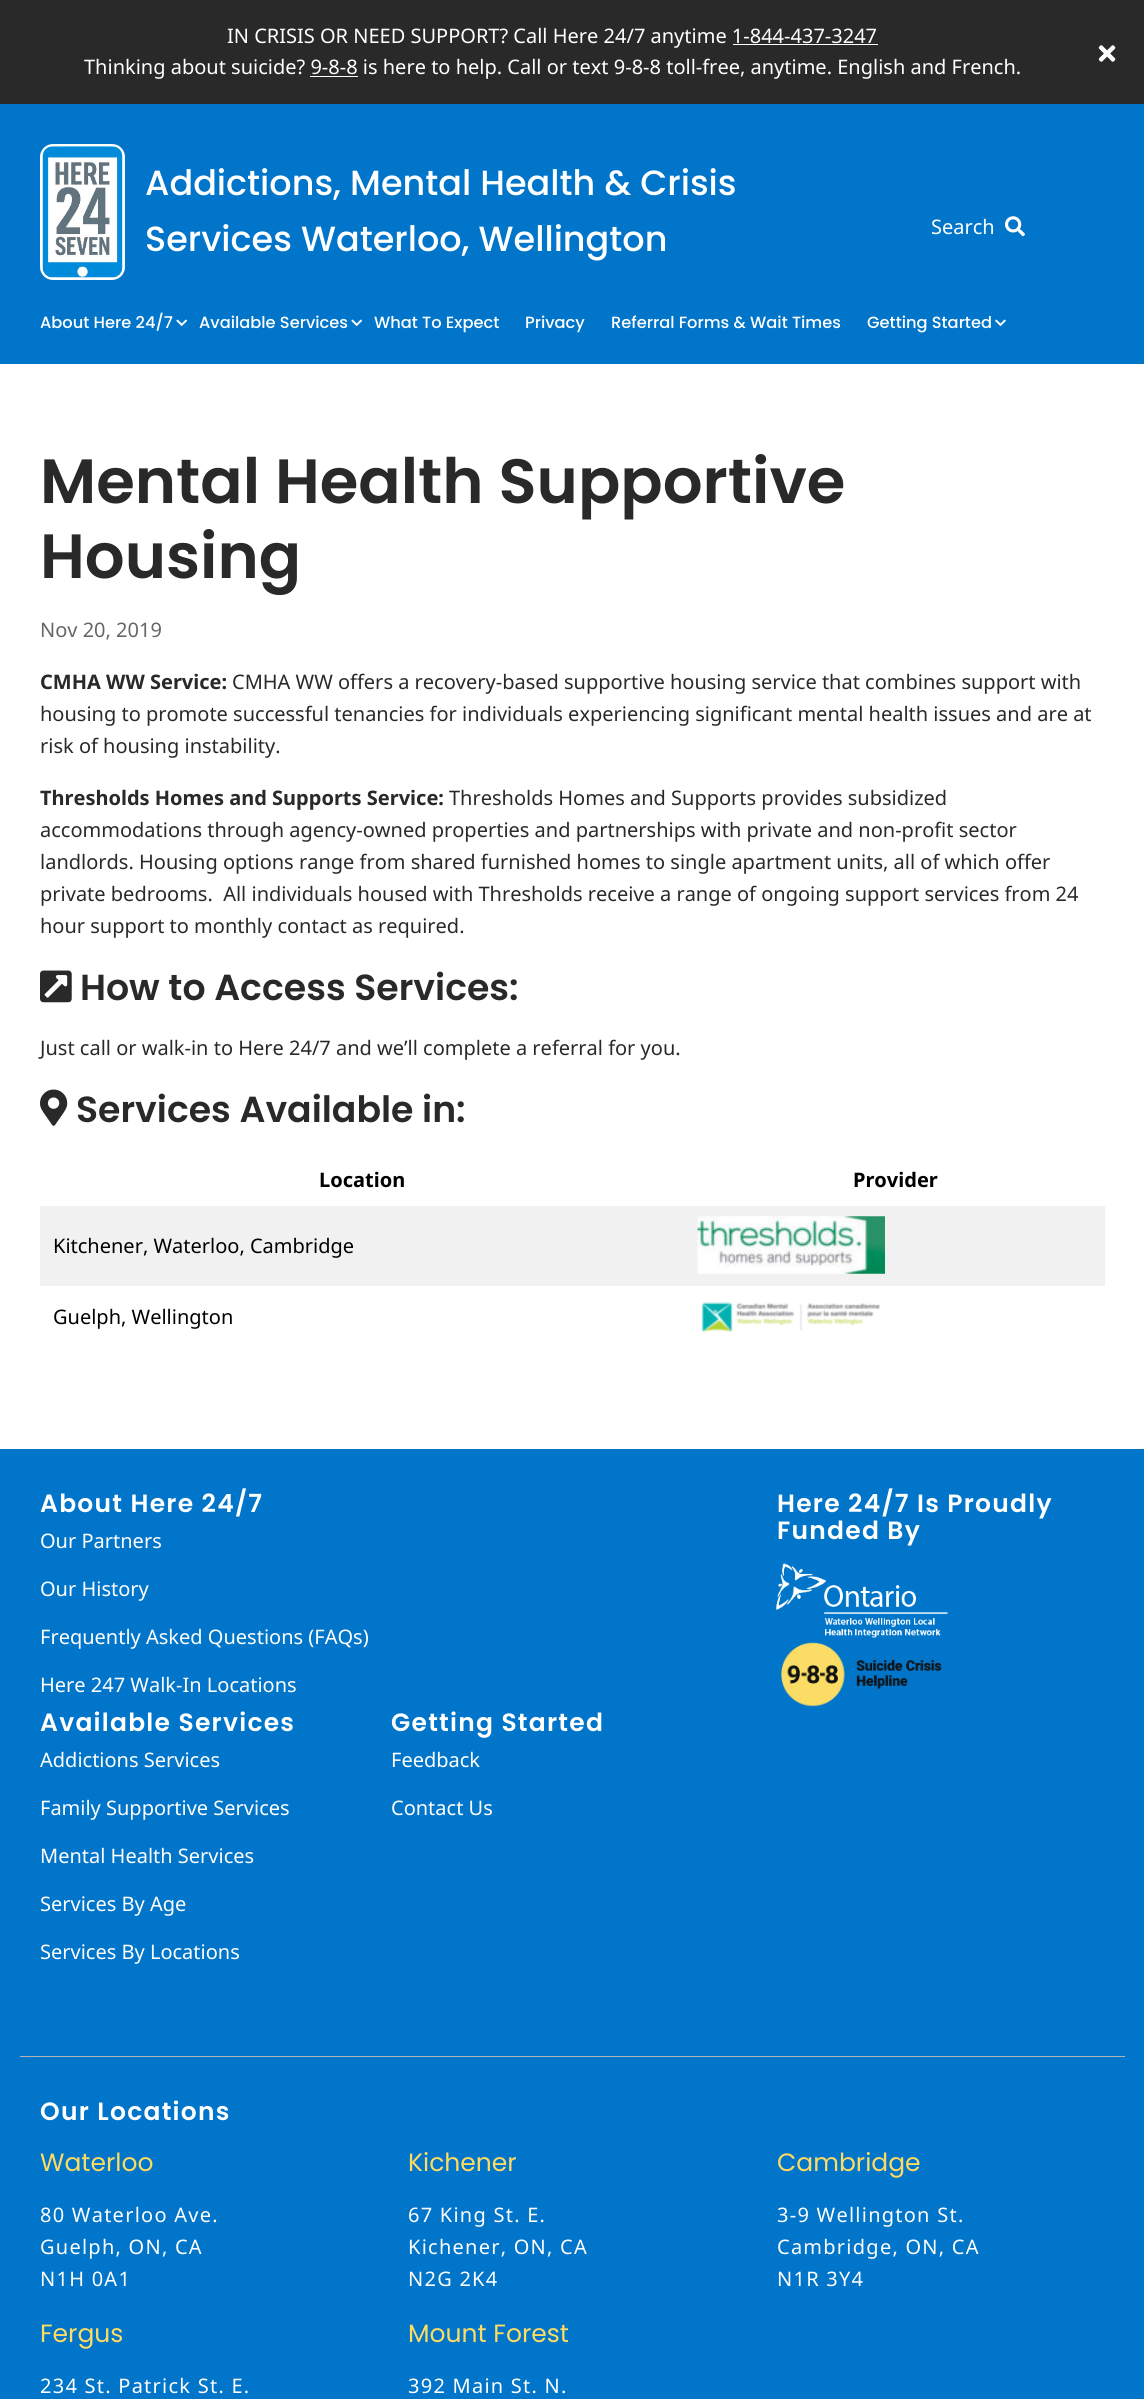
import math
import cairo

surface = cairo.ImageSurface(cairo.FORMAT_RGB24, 1144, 2399)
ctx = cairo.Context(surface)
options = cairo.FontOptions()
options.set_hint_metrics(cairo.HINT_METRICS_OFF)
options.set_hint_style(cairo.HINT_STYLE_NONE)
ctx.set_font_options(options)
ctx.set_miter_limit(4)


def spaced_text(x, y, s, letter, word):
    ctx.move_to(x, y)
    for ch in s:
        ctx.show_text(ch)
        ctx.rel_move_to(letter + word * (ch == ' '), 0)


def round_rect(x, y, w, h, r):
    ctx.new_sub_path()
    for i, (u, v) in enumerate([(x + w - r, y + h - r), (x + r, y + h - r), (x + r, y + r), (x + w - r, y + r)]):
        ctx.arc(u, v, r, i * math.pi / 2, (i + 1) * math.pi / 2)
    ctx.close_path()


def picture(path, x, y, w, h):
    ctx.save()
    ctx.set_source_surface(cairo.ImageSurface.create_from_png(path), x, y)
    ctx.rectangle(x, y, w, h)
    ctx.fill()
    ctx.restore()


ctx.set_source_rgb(1, 1, 1)
ctx.paint()
ctx.set_source_rgb(0.161, 0.161, 0.161)
ctx.rectangle(0, 0, 1144, 104)
ctx.fill()
ctx.select_font_face("Noto Sans")
ctx.set_font_size(20)
ctx.set_source_rgb(1, 1, 1)
ctx.move_to(227, 43)
ctx.show_text("IN CRISIS OR NEED SUPPORT? Call Here 24/7 anytime 1-844-437-3247")
ctx.rectangle(733, 44, 145, 1)
ctx.fill()
ctx.move_to(84, 74)
ctx.show_text("Thinking about suicide? 9-8-8 is here to help. Call or text 9-8-8 toll-free, anytime. English and French.")
ctx.rectangle(310, 76, 48, 1)
ctx.fill()
picture("img1.png", 1098, 45, 18, 17)
ctx.set_source_rgb(0.004, 0.459, 0.792)
ctx.rectangle(0, 104, 1144, 260)
ctx.fill()
round_rect(41.5, 145.5, 82, 133, 11.5)
ctx.set_source_rgb(1, 1, 1)
ctx.set_line_width(3)
ctx.stroke()
picture("img2.png", 42, 146, 81, 132)
ctx.select_font_face("Poppins Medium")
ctx.set_font_size(35)
ctx.move_to(145, 195)
ctx.show_text("Addictions, Mental Health & Crisis")
ctx.move_to(145, 251)
ctx.show_text("Services Waterloo, Wellington")
ctx.set_font_size(16.25)
ctx.move_to(40, 328)
ctx.show_text("About Here 24/7")
picture("img3.png", 176, 319, 11, 7)
ctx.move_to(199, 328)
ctx.show_text("Available Services")
picture("img3.png", 351, 319, 11, 7)
ctx.move_to(374, 328)
ctx.show_text("What To Expect")
ctx.move_to(525, 328)
ctx.show_text("Privacy")
ctx.move_to(611, 328)
ctx.show_text("Referral Forms & Wait Times")
ctx.move_to(867, 328)
ctx.show_text("Getting Started")
picture("img4.png", 995, 319, 11, 7)
ctx.select_font_face("Noto Sans")
ctx.set_font_size(20)
ctx.move_to(931, 234)
ctx.show_text("Search")
picture("img5.png", 1005, 216, 20, 21)
ctx.select_font_face("Poppins SemiBold")
ctx.set_font_size(62.5)
ctx.set_source_rgb(0.161, 0.161, 0.161)
ctx.move_to(40, 503)
ctx.show_text("Mental Health Supportive")
ctx.move_to(40, 578)
ctx.show_text("Housing")
ctx.select_font_face("Noto Sans")
ctx.set_font_size(20)
ctx.set_source_rgb(0.4, 0.4, 0.4)
ctx.move_to(40, 637)
ctx.show_text("Nov 20, 2019")
ctx.select_font_face("Noto Sans", cairo.FONT_SLANT_NORMAL, cairo.FONT_WEIGHT_BOLD)
ctx.set_source_rgb(0.161, 0.161, 0.161)
ctx.move_to(40, 689)
ctx.show_text("CMHA WW Service:")
ctx.select_font_face("Noto Sans")
ctx.move_to(232, 689)
ctx.show_text("CMHA WW offers a recovery-based supportive housing service that combines support with")
ctx.move_to(40, 721)
ctx.show_text("housing to promote successful tenancies for individuals experiencing significant mental health issues and are at")
ctx.move_to(40, 753)
ctx.show_text("risk of housing instability.")
ctx.select_font_face("Noto Sans", cairo.FONT_SLANT_NORMAL, cairo.FONT_WEIGHT_BOLD)
ctx.move_to(40, 805)
ctx.show_text("Thresholds Homes and Supports Service:")
ctx.select_font_face("Noto Sans")
ctx.move_to(449, 805)
ctx.show_text("Thresholds Homes and Supports provides subsidized")
ctx.move_to(40, 837)
ctx.show_text("accommodations through agency-owned properties and partnerships with private and non-profit sector")
ctx.move_to(40, 869)
ctx.show_text("landlords. Housing options range from shared furnished homes to single apartment units, all of which offer")
ctx.move_to(40, 901)
ctx.show_text("private bedrooms.  All individuals housed with Thresholds receive a range of ongoing support services from 24")
ctx.move_to(40, 933)
ctx.show_text("hour support to monthly contact as required.")
picture("img6.png", 40, 970, 32, 33)
ctx.select_font_face("Poppins SemiBold")
ctx.set_font_size(36.25)
ctx.move_to(80, 1000)
ctx.show_text("How to Access Services:")
ctx.select_font_face("Noto Sans")
ctx.set_font_size(20)
ctx.move_to(40, 1055)
ctx.show_text("Just call or walk-in to Here 24/7 and we’ll complete a referral for you.")
picture("img7.png", 40, 1089, 28, 37)
ctx.select_font_face("Poppins SemiBold")
ctx.set_font_size(36.25)
ctx.move_to(76, 1122)
ctx.show_text("Services Available in:")
ctx.select_font_face("Noto Sans", cairo.FONT_SLANT_NORMAL, cairo.FONT_WEIGHT_BOLD)
ctx.set_font_size(20)
ctx.set_source_rgb(0, 0, 0)
ctx.move_to(319, 1187)
ctx.show_text("Location")
ctx.move_to(853, 1187)
ctx.show_text("Provider")
ctx.set_source_rgb(0.945, 0.945, 0.945)
ctx.rectangle(40, 1206, 1065, 80)
ctx.fill()
ctx.select_font_face("Noto Sans")
ctx.set_source_rgb(0, 0, 0)
ctx.move_to(53, 1253)
ctx.show_text("Kitchener, Waterloo, Cambridge")
picture("img8.png", 697, 1216, 188, 58)
ctx.move_to(53, 1324)
ctx.show_text("Guelph, Wellington")
picture("img9.png", 701, 1302, 180, 31)
ctx.set_source_rgb(0.004, 0.459, 0.792)
ctx.rectangle(0, 1449, 1144, 950)
ctx.fill()
ctx.set_source_rgb(0.706, 0.706, 0.706)
ctx.rectangle(20, 2056, 1105, 1)
ctx.fill()
ctx.select_font_face("Poppins SemiBold")
ctx.set_font_size(25)
ctx.set_source_rgb(1, 1, 1)
spaced_text(40, 1512, "About Here 24/7", 1.25, 0)
ctx.select_font_face("Noto Sans")
ctx.set_font_size(20)
ctx.move_to(40, 1548)
ctx.show_text("Our Partners")
ctx.move_to(40, 1596)
ctx.show_text("Our History")
ctx.move_to(40, 1644)
ctx.show_text("Frequently Asked Questions (FAQs)")
ctx.move_to(40, 1692)
ctx.show_text("Here 247 Walk-In Locations")
ctx.select_font_face("Poppins SemiBold")
ctx.set_font_size(25)
spaced_text(40, 1731, "Available Services", 1.25, 0)
ctx.select_font_face("Noto Sans")
ctx.set_font_size(20)
ctx.move_to(40, 1767)
ctx.show_text("Addictions Services")
ctx.move_to(40, 1815)
ctx.show_text("Family Supportive Services")
ctx.move_to(40, 1863)
ctx.show_text("Mental Health Services")
ctx.move_to(40, 1911)
ctx.show_text("Services By Age")
ctx.move_to(40, 1959)
ctx.show_text("Services By Locations")
ctx.select_font_face("Poppins SemiBold")
ctx.set_font_size(25)
spaced_text(391, 1731, "Getting Started", 1.25, 0)
ctx.select_font_face("Noto Sans")
ctx.set_font_size(20)
ctx.move_to(391, 1767)
ctx.show_text("Feedback")
ctx.move_to(391, 1815)
ctx.show_text("Contact Us")
ctx.select_font_face("Poppins SemiBold")
ctx.set_font_size(25)
spaced_text(777, 1512, "Here 24/7 Is Proudly", 1.25, 0)
spaced_text(777, 1539, "Funded By", 1.25, 0)
picture("img10.png", 776, 1563, 172, 75)
picture("img11.png", 781, 1642, 161, 65)
spaced_text(40, 2120, "Our Locations", 1.25, 0)
ctx.select_font_face("Poppins")
ctx.set_source_rgb(0.996, 0.859, 0.384)
ctx.move_to(40, 2171)
ctx.show_text("Waterloo")
ctx.select_font_face("Noto Sans")
ctx.set_font_size(20)
ctx.set_source_rgb(1, 1, 1)
spaced_text(40, 2222, "80 Waterloo Ave.", 1.25, 0)
spaced_text(40, 2254, "Guelph, ON, CA", 1.25, 0)
spaced_text(40, 2286, "N1H 0A1", 1.25, 0)
ctx.select_font_face("Poppins")
ctx.set_font_size(25)
ctx.set_source_rgb(0.996, 0.859, 0.384)
ctx.move_to(408, 2171)
ctx.show_text("Kichener")
ctx.select_font_face("Noto Sans")
ctx.set_font_size(20)
ctx.set_source_rgb(1, 1, 1)
spaced_text(408, 2222, "67 King St. E.", 1.25, 0)
spaced_text(408, 2254, "Kichener, ON, CA", 1.25, 0)
spaced_text(408, 2286, "N2G 2K4", 1.25, 0)
ctx.select_font_face("Poppins")
ctx.set_font_size(25)
ctx.set_source_rgb(0.996, 0.859, 0.384)
ctx.move_to(777, 2171)
ctx.show_text("Cambridge")
ctx.select_font_face("Noto Sans")
ctx.set_font_size(20)
ctx.set_source_rgb(1, 1, 1)
spaced_text(777, 2222, "3-9 Wellington St.", 1.25, 0)
spaced_text(777, 2254, "Cambridge, ON, CA", 1.25, 0)
spaced_text(777, 2286, "N1R 3Y4", 1.25, 0)
ctx.select_font_face("Poppins")
ctx.set_font_size(25)
ctx.set_source_rgb(0.996, 0.859, 0.384)
ctx.move_to(40, 2342)
ctx.show_text("Fergus")
ctx.select_font_face("Noto Sans")
ctx.set_font_size(20)
ctx.set_source_rgb(1, 1, 1)
spaced_text(40, 2393, "234 St. Patrick St. E.", 1.25, 0)
ctx.select_font_face("Poppins")
ctx.set_font_size(25)
ctx.set_source_rgb(0.996, 0.859, 0.384)
ctx.move_to(408, 2342)
ctx.show_text("Mount Forest")
ctx.select_font_face("Noto Sans")
ctx.set_font_size(20)
ctx.set_source_rgb(1, 1, 1)
spaced_text(408, 2393, "392 Main St. N.", 1.25, 0)
surface.write_to_png("page.png")
